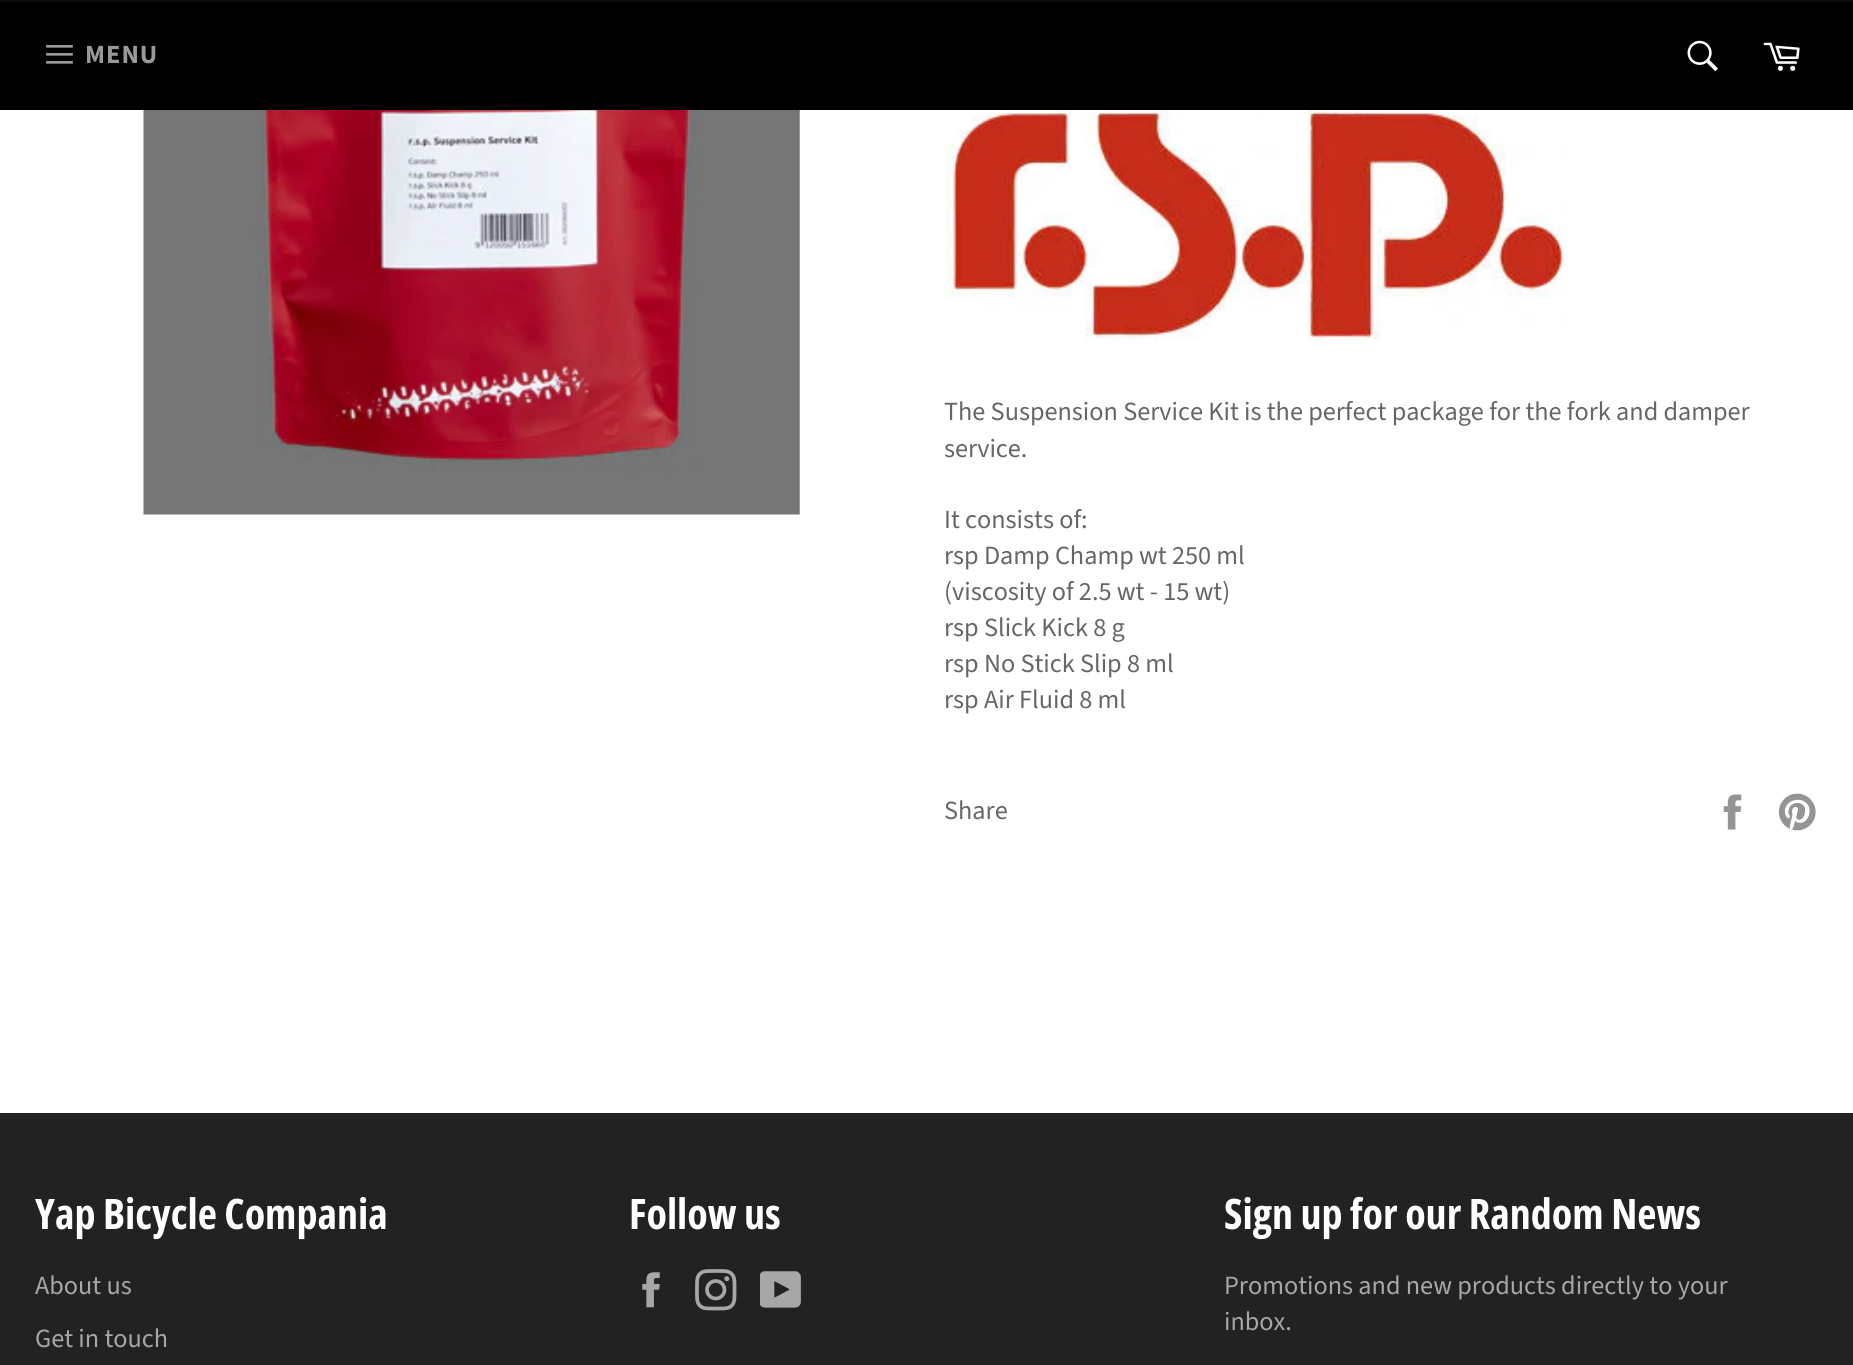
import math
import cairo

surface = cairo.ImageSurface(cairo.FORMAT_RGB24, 1853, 1365)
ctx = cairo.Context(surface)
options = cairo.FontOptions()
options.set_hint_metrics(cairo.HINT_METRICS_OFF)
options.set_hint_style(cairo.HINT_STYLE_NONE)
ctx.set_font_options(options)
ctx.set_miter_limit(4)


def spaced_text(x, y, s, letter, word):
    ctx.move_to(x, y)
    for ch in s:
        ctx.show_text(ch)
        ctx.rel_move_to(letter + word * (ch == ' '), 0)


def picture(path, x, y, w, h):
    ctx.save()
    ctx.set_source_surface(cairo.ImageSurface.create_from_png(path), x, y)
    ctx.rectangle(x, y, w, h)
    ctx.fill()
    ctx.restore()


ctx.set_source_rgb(1, 1, 1)
ctx.paint()
ctx.set_source_rgb(0, 0, 0)
ctx.rectangle(0, 2, 1853, 108)
ctx.fill()
ctx.set_source_rgb(0.051, 0.051, 0.051)
ctx.rectangle(0, 0, 1853, 2)
ctx.fill()
picture("img1.png", 46, 45, 27, 19)
ctx.select_font_face("Source Sans Pro", cairo.FONT_SLANT_NORMAL, cairo.FONT_WEIGHT_BOLD)
ctx.set_font_size(26.25)
ctx.set_source_rgb(0.6, 0.6, 0.6)
spaced_text(85, 63, "MENU", 1, 0)
picture("img2.png", 1687, 40, 31, 32)
picture("img3.png", 1763, 42, 37, 29)
picture("img4.png", 143, 110, 657, 405)
picture("img5.png", 945, 110, 623, 230)
ctx.select_font_face("Source Sans Pro")
ctx.set_source_rgb(0.4, 0.4, 0.4)
ctx.move_to(944, 420)
ctx.show_text("The Suspension Service Kit is the perfect package for the fork and damper")
ctx.move_to(944, 457)
ctx.show_text("service.")
ctx.move_to(944, 528)
ctx.show_text("It consists of:")
ctx.move_to(944, 564)
ctx.show_text("rsp Damp Champ wt 250 ml")
ctx.move_to(944, 600)
ctx.show_text("(viscosity of 2.5 wt - 15 wt)")
ctx.move_to(944, 636)
ctx.show_text("rsp Slick Kick 8 g")
ctx.move_to(944, 672)
ctx.show_text("rsp No Stick Slip 8 ml")
ctx.move_to(944, 708)
ctx.show_text("rsp Air Fluid 8 ml")
ctx.move_to(944, 819)
ctx.show_text("Share")
picture("img6.png", 1723, 794, 19, 36)
picture("img7.png", 1778, 793, 38, 38)
ctx.set_source_rgb(0.133, 0.133, 0.133)
ctx.rectangle(0, 1113, 1853, 252)
ctx.fill()
ctx.select_font_face("Open Sans Condensed", cairo.FONT_SLANT_NORMAL, cairo.FONT_WEIGHT_BOLD)
ctx.set_font_size(42)
ctx.set_source_rgb(1, 1, 1)
ctx.move_to(35, 1229)
ctx.show_text("Yap Bicycle Compania")
ctx.select_font_face("Source Sans Pro")
ctx.set_font_size(26.25)
ctx.set_source_rgb(0.655, 0.655, 0.655)
ctx.move_to(35, 1294)
ctx.show_text("About us")
ctx.move_to(35, 1347)
ctx.show_text("Get in touch")
ctx.select_font_face("Open Sans Condensed", cairo.FONT_SLANT_NORMAL, cairo.FONT_WEIGHT_BOLD)
ctx.set_font_size(42)
ctx.set_source_rgb(1, 1, 1)
ctx.move_to(629, 1229)
ctx.show_text("Follow us")
picture("img8.png", 642, 1272, 18, 36)
picture("img9.png", 695, 1269, 42, 42)
picture("img10.png", 760, 1271, 41, 37)
ctx.move_to(1224, 1229)
ctx.show_text("Sign up for our Random News")
ctx.select_font_face("Source Sans Pro")
ctx.set_font_size(26.25)
ctx.set_source_rgb(0.655, 0.655, 0.655)
ctx.move_to(1224, 1294)
ctx.show_text("Promotions and new products directly to your")
ctx.move_to(1224, 1330)
ctx.show_text("inbox.")
surface.write_to_png("page.png")
